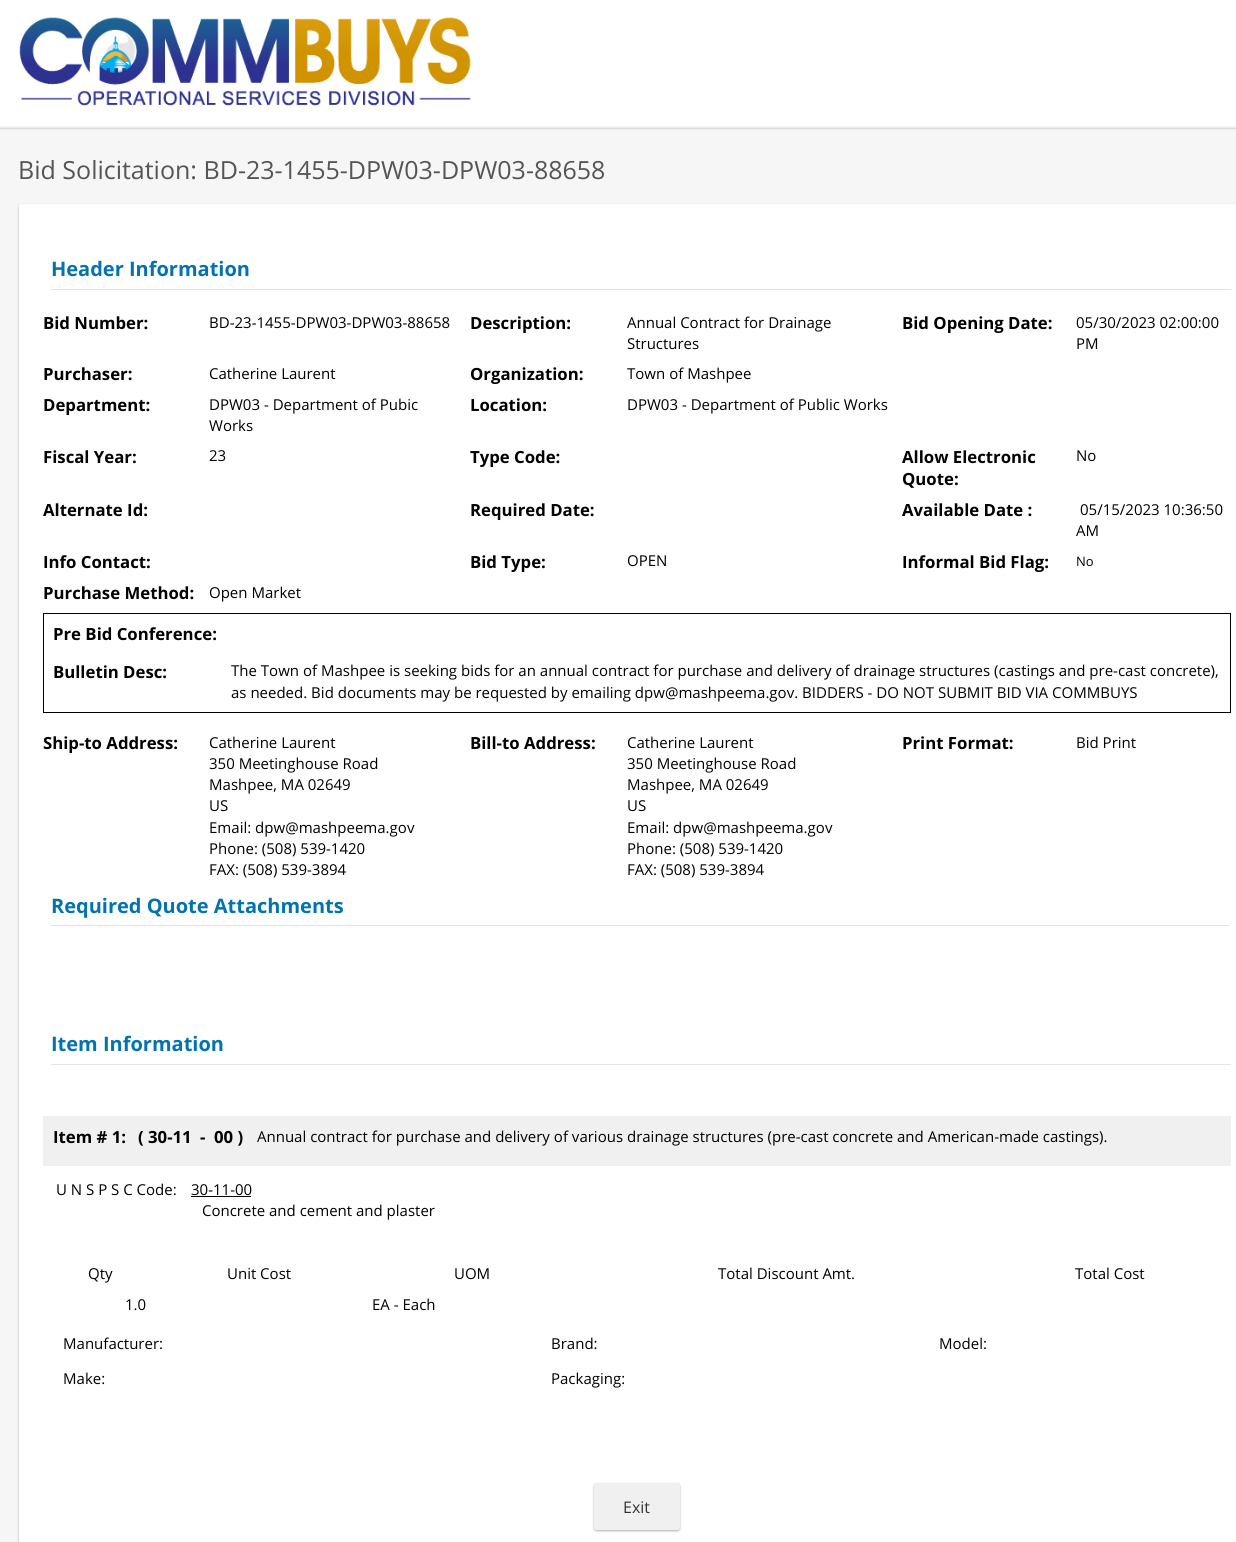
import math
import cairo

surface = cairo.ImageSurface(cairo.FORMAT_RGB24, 1236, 1542)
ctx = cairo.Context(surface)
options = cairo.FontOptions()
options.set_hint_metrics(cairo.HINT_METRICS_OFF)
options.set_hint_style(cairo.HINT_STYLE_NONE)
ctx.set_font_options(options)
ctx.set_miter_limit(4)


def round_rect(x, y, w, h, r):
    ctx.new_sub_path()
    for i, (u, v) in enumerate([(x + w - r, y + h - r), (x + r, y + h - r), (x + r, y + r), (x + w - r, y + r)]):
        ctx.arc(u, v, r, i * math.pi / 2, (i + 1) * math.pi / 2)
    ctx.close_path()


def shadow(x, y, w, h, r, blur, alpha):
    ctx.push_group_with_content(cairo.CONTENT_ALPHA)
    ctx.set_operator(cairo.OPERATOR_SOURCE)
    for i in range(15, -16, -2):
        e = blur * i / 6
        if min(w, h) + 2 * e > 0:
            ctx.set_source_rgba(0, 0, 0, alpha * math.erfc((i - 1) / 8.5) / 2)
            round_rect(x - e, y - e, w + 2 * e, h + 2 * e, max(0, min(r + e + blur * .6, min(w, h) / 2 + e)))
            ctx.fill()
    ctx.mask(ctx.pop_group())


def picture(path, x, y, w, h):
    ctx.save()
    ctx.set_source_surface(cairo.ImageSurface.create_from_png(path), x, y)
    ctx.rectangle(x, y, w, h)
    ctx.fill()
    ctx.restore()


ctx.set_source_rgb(0.961, 0.961, 0.961)
ctx.paint()
ctx.set_source_rgb(1, 1, 1)
ctx.rectangle(0, 0, 1236, 126)
ctx.fill()
picture("img1.png", 19, 15, 452, 91)
ctx.set_source_rgb(0, 0, 0)
shadow(0, 128, 1236, 1, 0, 0.5, 0.15)
ctx.set_source_rgb(0.169, 0.231, 0.365)
shadow(19, 205, 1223, 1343, 2.5, 1, 0.4)
ctx.set_source_rgb(1, 1, 1)
round_rect(19, 204, 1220, 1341, 2.5)
ctx.fill()
ctx.select_font_face("Open Sans")
ctx.set_font_size(25)
ctx.set_source_rgb(0.333, 0.333, 0.333)
ctx.move_to(18, 179)
ctx.show_text("Bid Solicitation: BD-23-1455-DPW03-DPW03-88658")
ctx.select_font_face("Open Sans", cairo.FONT_SLANT_NORMAL, cairo.FONT_WEIGHT_BOLD)
ctx.set_font_size(20)
ctx.set_source_rgb(0.008, 0.451, 0.686)
ctx.move_to(51, 276)
ctx.show_text("Header Information")
ctx.set_source_rgb(0.886, 0.898, 0.902)
ctx.rectangle(51, 289, 1180, 1)
ctx.fill()
ctx.set_font_size(16.75)
ctx.set_source_rgb(0, 0, 0)
ctx.move_to(43, 329)
ctx.show_text("Bid Number:")
ctx.select_font_face("Open Sans")
ctx.set_font_size(15)
ctx.move_to(209, 328)
ctx.show_text("BD-23-1455-DPW03-DPW03-88658")
ctx.select_font_face("Open Sans", cairo.FONT_SLANT_NORMAL, cairo.FONT_WEIGHT_BOLD)
ctx.set_font_size(16.75)
ctx.move_to(470, 329)
ctx.show_text("Description:")
ctx.select_font_face("Open Sans")
ctx.set_font_size(15)
ctx.move_to(627, 328)
ctx.show_text("Annual Contract for Drainage")
ctx.move_to(627, 349)
ctx.show_text("Structures")
ctx.select_font_face("Open Sans", cairo.FONT_SLANT_NORMAL, cairo.FONT_WEIGHT_BOLD)
ctx.set_font_size(16.75)
ctx.move_to(902, 329)
ctx.show_text("Bid Opening Date:")
ctx.select_font_face("Open Sans")
ctx.set_font_size(15)
ctx.move_to(1076, 328)
ctx.show_text("05/30/2023 02:00:00")
ctx.move_to(1076, 349)
ctx.show_text("PM")
ctx.select_font_face("Open Sans", cairo.FONT_SLANT_NORMAL, cairo.FONT_WEIGHT_BOLD)
ctx.set_font_size(16.75)
ctx.move_to(43, 380)
ctx.show_text("Purchaser:")
ctx.select_font_face("Open Sans")
ctx.set_font_size(15)
ctx.move_to(209, 379)
ctx.show_text("Catherine Laurent")
ctx.select_font_face("Open Sans", cairo.FONT_SLANT_NORMAL, cairo.FONT_WEIGHT_BOLD)
ctx.set_font_size(16.75)
ctx.move_to(470, 380)
ctx.show_text("Organization:")
ctx.select_font_face("Open Sans")
ctx.set_font_size(15)
ctx.move_to(627, 379)
ctx.show_text("Town of Mashpee")
ctx.select_font_face("Open Sans", cairo.FONT_SLANT_NORMAL, cairo.FONT_WEIGHT_BOLD)
ctx.set_font_size(16.75)
ctx.move_to(43, 411)
ctx.show_text("Department:")
ctx.select_font_face("Open Sans")
ctx.set_font_size(15)
ctx.move_to(209, 410)
ctx.show_text("DPW03 - Department of Pubic")
ctx.move_to(209, 431)
ctx.show_text("Works")
ctx.select_font_face("Open Sans", cairo.FONT_SLANT_NORMAL, cairo.FONT_WEIGHT_BOLD)
ctx.set_font_size(16.75)
ctx.move_to(470, 411)
ctx.show_text("Location:")
ctx.select_font_face("Open Sans")
ctx.set_font_size(15)
ctx.move_to(627, 410)
ctx.show_text("DPW03 - Department of Public Works")
ctx.select_font_face("Open Sans", cairo.FONT_SLANT_NORMAL, cairo.FONT_WEIGHT_BOLD)
ctx.set_font_size(16.75)
ctx.move_to(43, 463)
ctx.show_text("Fiscal Year:")
ctx.select_font_face("Open Sans")
ctx.set_font_size(15)
ctx.move_to(209, 461)
ctx.show_text("23")
ctx.select_font_face("Open Sans", cairo.FONT_SLANT_NORMAL, cairo.FONT_WEIGHT_BOLD)
ctx.set_font_size(16.75)
ctx.move_to(470, 463)
ctx.show_text("Type Code:")
ctx.move_to(902, 463)
ctx.show_text("Allow Electronic")
ctx.move_to(902, 485)
ctx.show_text("Quote:")
ctx.select_font_face("Open Sans")
ctx.set_font_size(15)
ctx.move_to(1076, 461)
ctx.show_text("No")
ctx.select_font_face("Open Sans", cairo.FONT_SLANT_NORMAL, cairo.FONT_WEIGHT_BOLD)
ctx.set_font_size(16.75)
ctx.move_to(43, 516)
ctx.show_text("Alternate Id:")
ctx.move_to(470, 516)
ctx.show_text("Required Date:")
ctx.move_to(902, 516)
ctx.show_text("Available Date :")
ctx.select_font_face("Open Sans")
ctx.set_font_size(15)
ctx.move_to(1080, 515)
ctx.show_text("05/15/2023 10:36:50")
ctx.move_to(1076, 536)
ctx.show_text("AM")
ctx.select_font_face("Open Sans", cairo.FONT_SLANT_NORMAL, cairo.FONT_WEIGHT_BOLD)
ctx.set_font_size(16.75)
ctx.move_to(43, 568)
ctx.show_text("Info Contact:")
ctx.move_to(470, 568)
ctx.show_text("Bid Type:")
ctx.select_font_face("Open Sans")
ctx.set_font_size(15)
ctx.move_to(627, 566)
ctx.show_text("OPEN")
ctx.select_font_face("Open Sans", cairo.FONT_SLANT_NORMAL, cairo.FONT_WEIGHT_BOLD)
ctx.set_font_size(16.75)
ctx.move_to(902, 568)
ctx.show_text("Informal Bid Flag:")
ctx.select_font_face("Open Sans")
ctx.set_font_size(13)
ctx.move_to(1076, 566)
ctx.show_text("No")
ctx.select_font_face("Open Sans", cairo.FONT_SLANT_NORMAL, cairo.FONT_WEIGHT_BOLD)
ctx.set_font_size(16.75)
ctx.move_to(43, 599)
ctx.show_text("Purchase Method:")
ctx.select_font_face("Open Sans")
ctx.set_font_size(15)
ctx.move_to(209, 598)
ctx.show_text("Open Market")
ctx.rectangle(43.5, 613.5, 1187, 99)
ctx.set_line_width(1)
ctx.stroke()
ctx.select_font_face("Open Sans", cairo.FONT_SLANT_NORMAL, cairo.FONT_WEIGHT_BOLD)
ctx.set_font_size(16.75)
ctx.move_to(53, 640)
ctx.show_text("Pre Bid Conference:")
ctx.move_to(53, 678)
ctx.show_text("Bulletin Desc:")
ctx.select_font_face("Open Sans")
ctx.set_font_size(15)
ctx.move_to(231, 676)
ctx.show_text("The Town of Mashpee is seeking bids for an annual contract for purchase and delivery of drainage structures (castings and pre-cast concrete),")
ctx.move_to(231, 698)
ctx.show_text("as needed. Bid documents may be requested by emailing dpw@mashpeema.gov. BIDDERS - DO NOT SUBMIT BID VIA COMMBUYS")
ctx.select_font_face("Open Sans", cairo.FONT_SLANT_NORMAL, cairo.FONT_WEIGHT_BOLD)
ctx.set_font_size(16.75)
ctx.move_to(43, 749)
ctx.show_text("Ship-to Address:")
ctx.select_font_face("Open Sans")
ctx.set_font_size(15)
ctx.move_to(209, 748)
ctx.show_text("Catherine Laurent")
ctx.move_to(209, 769)
ctx.show_text("350 Meetinghouse Road")
ctx.move_to(209, 790)
ctx.show_text("Mashpee, MA 02649")
ctx.move_to(209, 811)
ctx.show_text("US")
ctx.move_to(209, 833)
ctx.show_text("Email: dpw@mashpeema.gov")
ctx.move_to(209, 854)
ctx.show_text("Phone: (508) 539-1420")
ctx.move_to(209, 875)
ctx.show_text("FAX: (508) 539-3894")
ctx.select_font_face("Open Sans", cairo.FONT_SLANT_NORMAL, cairo.FONT_WEIGHT_BOLD)
ctx.set_font_size(16.75)
ctx.move_to(470, 749)
ctx.show_text("Bill-to Address:")
ctx.select_font_face("Open Sans")
ctx.set_font_size(15)
ctx.move_to(627, 748)
ctx.show_text("Catherine Laurent")
ctx.move_to(627, 769)
ctx.show_text("350 Meetinghouse Road")
ctx.move_to(627, 790)
ctx.show_text("Mashpee, MA 02649")
ctx.move_to(627, 811)
ctx.show_text("US")
ctx.move_to(627, 833)
ctx.show_text("Email: dpw@mashpeema.gov")
ctx.move_to(627, 854)
ctx.show_text("Phone: (508) 539-1420")
ctx.move_to(627, 875)
ctx.show_text("FAX: (508) 539-3894")
ctx.select_font_face("Open Sans", cairo.FONT_SLANT_NORMAL, cairo.FONT_WEIGHT_BOLD)
ctx.set_font_size(16.75)
ctx.move_to(902, 749)
ctx.show_text("Print Format:")
ctx.select_font_face("Open Sans")
ctx.set_font_size(15)
ctx.move_to(1076, 748)
ctx.show_text("Bid Print")
ctx.select_font_face("Open Sans", cairo.FONT_SLANT_NORMAL, cairo.FONT_WEIGHT_BOLD)
ctx.set_font_size(20)
ctx.set_source_rgb(0.008, 0.451, 0.686)
ctx.move_to(51, 913)
ctx.show_text("Required Quote Attachments")
ctx.set_source_rgb(0.886, 0.898, 0.902)
ctx.rectangle(51, 925, 1178, 1)
ctx.fill()
ctx.set_source_rgb(0.008, 0.451, 0.686)
ctx.move_to(51, 1051)
ctx.show_text("Item Information")
ctx.set_source_rgb(0.886, 0.898, 0.902)
ctx.rectangle(51, 1064, 1180, 1)
ctx.fill()
ctx.set_source_rgb(0.941, 0.941, 0.941)
ctx.rectangle(43, 1116, 1188, 50)
ctx.fill()
ctx.set_font_size(16.75)
ctx.set_source_rgb(0, 0, 0)
ctx.move_to(53, 1143)
ctx.show_text("Item # 1:")
ctx.move_to(138, 1143)
ctx.show_text("( 30-11")
ctx.move_to(200, 1143)
ctx.show_text("-")
ctx.move_to(214, 1143)
ctx.show_text("00 )")
ctx.select_font_face("Open Sans")
ctx.set_font_size(15)
ctx.move_to(257, 1142)
ctx.show_text("Annual contract for purchase and delivery of various drainage structures (pre-cast concrete and American-made castings).")
ctx.move_to(56, 1195)
ctx.show_text("U N S P S C Code:")
ctx.move_to(191, 1195)
ctx.show_text("30-11-00")
ctx.rectangle(191, 1196, 60, 1)
ctx.fill()
ctx.move_to(202, 1216)
ctx.show_text("Concrete and cement and plaster")
ctx.move_to(88, 1279)
ctx.show_text("Qty")
ctx.move_to(227, 1279)
ctx.show_text("Unit Cost")
ctx.move_to(454, 1279)
ctx.show_text("UOM")
ctx.move_to(718, 1279)
ctx.show_text("Total Discount Amt.")
ctx.move_to(1075, 1279)
ctx.show_text("Total Cost")
ctx.move_to(125, 1310)
ctx.show_text("1.0")
ctx.move_to(372, 1310)
ctx.show_text("EA - Each")
ctx.move_to(63, 1349)
ctx.show_text("Manufacturer:")
ctx.move_to(551, 1349)
ctx.show_text("Brand:")
ctx.move_to(939, 1349)
ctx.show_text("Model:")
ctx.move_to(63, 1384)
ctx.show_text("Make:")
ctx.move_to(551, 1384)
ctx.show_text("Packaging:")
ctx.set_source_rgb(0, 0, 0)
shadow(594, 1484, 86, 47, 2.5, 1, 0.3)
ctx.set_source_rgb(0.941, 0.941, 0.941)
round_rect(594, 1483, 86, 47, 2.5)
ctx.fill()
ctx.set_font_size(16)
ctx.set_source_rgb(0.2, 0.2, 0.2)
ctx.move_to(623, 1513)
ctx.show_text("Exit")
surface.write_to_png("page.png")
